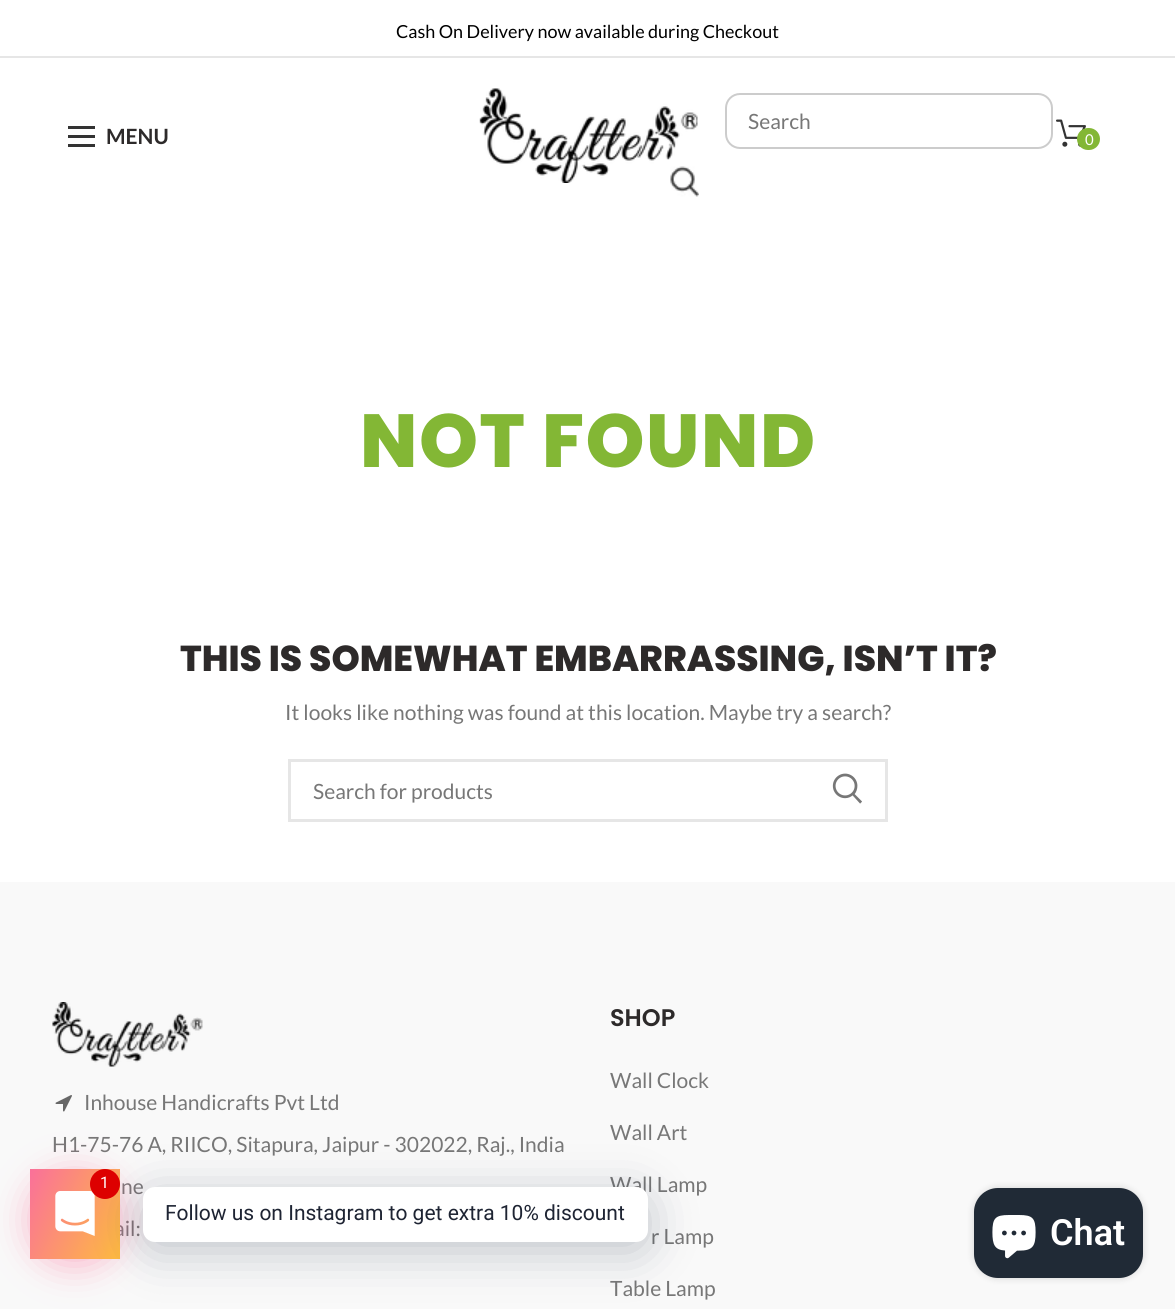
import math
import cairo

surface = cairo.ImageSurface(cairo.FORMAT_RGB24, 1175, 1309)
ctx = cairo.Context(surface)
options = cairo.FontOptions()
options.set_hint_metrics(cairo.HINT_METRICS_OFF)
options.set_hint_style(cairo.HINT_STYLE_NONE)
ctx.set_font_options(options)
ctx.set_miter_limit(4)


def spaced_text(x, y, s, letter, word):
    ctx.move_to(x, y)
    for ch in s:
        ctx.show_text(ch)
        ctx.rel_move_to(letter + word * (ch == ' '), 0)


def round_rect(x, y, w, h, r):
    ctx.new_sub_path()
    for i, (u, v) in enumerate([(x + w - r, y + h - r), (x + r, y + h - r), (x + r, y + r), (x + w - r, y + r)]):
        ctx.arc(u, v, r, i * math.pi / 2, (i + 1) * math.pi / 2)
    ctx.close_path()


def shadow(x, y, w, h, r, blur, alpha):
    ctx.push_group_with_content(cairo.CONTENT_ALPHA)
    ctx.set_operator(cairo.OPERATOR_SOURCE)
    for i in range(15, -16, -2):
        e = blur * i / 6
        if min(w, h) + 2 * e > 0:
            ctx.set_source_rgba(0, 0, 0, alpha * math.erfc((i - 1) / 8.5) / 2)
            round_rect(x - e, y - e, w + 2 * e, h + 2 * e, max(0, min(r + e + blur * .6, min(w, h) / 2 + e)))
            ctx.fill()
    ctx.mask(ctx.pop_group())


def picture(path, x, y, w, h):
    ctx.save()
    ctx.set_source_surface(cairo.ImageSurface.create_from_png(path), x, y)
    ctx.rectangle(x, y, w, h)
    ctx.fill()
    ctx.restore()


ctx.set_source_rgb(1, 1, 1)
ctx.paint()
ctx.set_source_rgb(0.902, 0.902, 0.902)
ctx.rectangle(0, 56, 1175, 2)
ctx.fill()
ctx.select_font_face("Lato")
ctx.set_font_size(18)
ctx.set_source_rgb(0, 0, 0)
ctx.move_to(396, 38)
ctx.show_text("Cash On Delivery now available during Checkout")
ctx.set_source_rgb(0.2, 0.2, 0.2)
ctx.rectangle(68, 135, 27, 3)
ctx.fill()
ctx.rectangle(68, 126, 27, 3)
ctx.fill()
ctx.rectangle(68, 144, 27, 3)
ctx.fill()
ctx.select_font_face("Lato", cairo.FONT_SLANT_NORMAL, cairo.FONT_WEIGHT_BOLD)
ctx.set_font_size(21)
ctx.set_source_rgb(0.176, 0.165, 0.165)
ctx.move_to(106, 144)
ctx.show_text("MENU")
picture("img1.png", 479, 88, 219, 95)
round_rect(726, 94, 326, 54, 14)
ctx.set_source_rgb(0.8, 0.8, 0.8)
ctx.stroke()
ctx.select_font_face("Lato")
ctx.set_source_rgb(0.467, 0.467, 0.467)
ctx.move_to(748, 129)
ctx.show_text("Search")
picture("img2.png", 670, 166, 29, 31)
picture("img3.png", 1056, 119, 30, 28)
ctx.set_source_rgb(0.514, 0.718, 0.208)
round_rect(1077, 128, 23, 22, 11)
ctx.fill()
ctx.set_font_size(15)
ctx.set_source_rgb(1, 1, 1)
ctx.move_to(1085, 145)
ctx.show_text("0")
ctx.select_font_face("Poppins ExtraBold")
ctx.set_font_size(75)
ctx.set_source_rgb(0.514, 0.718, 0.208)
spaced_text(360, 467, "NOT FOUND", 1.5, 0)
ctx.set_font_size(36)
ctx.set_source_rgb(0.176, 0.165, 0.165)
ctx.move_to(180, 671)
ctx.show_text("THIS IS SOMEWHAT EMBARRASSING, ISN’T IT?")
ctx.select_font_face("Lato")
ctx.set_font_size(21)
ctx.set_source_rgb(0.467, 0.467, 0.467)
ctx.move_to(285, 720)
ctx.show_text("It looks like nothing was found at this location. Maybe try a search?")
ctx.rectangle(289.5, 760.5, 597, 60)
ctx.set_source_rgb(0.902, 0.902, 0.902)
ctx.set_line_width(3)
ctx.stroke()
ctx.set_source_rgb(0.467, 0.467, 0.467)
ctx.move_to(313, 799)
ctx.show_text("Search for products")
picture("img4.png", 832, 773, 30, 31)
ctx.set_source_rgb(0.976, 0.976, 0.976)
ctx.rectangle(0, 882, 1175, 427)
ctx.fill()
picture("img5.png", 52, 1002, 151, 65)
picture("img6.png", 55, 1095, 17, 17)
ctx.set_source_rgb(0.467, 0.467, 0.467)
ctx.move_to(84, 1110)
ctx.show_text("Inhouse Handicrafts Pvt Ltd")
ctx.move_to(52, 1152)
ctx.show_text("H1-75-76 A, RIICO, Sitapura, Jaipur - 302022, Raj., India")
ctx.move_to(121, 1194)
ctx.show_text("ne")
ctx.move_to(114, 1236)
ctx.show_text("ail:")
ctx.select_font_face("Poppins SemiBold")
ctx.set_font_size(24)
ctx.set_source_rgb(0.176, 0.165, 0.165)
ctx.move_to(610, 1026)
ctx.show_text("SHOP")
ctx.select_font_face("Lato")
ctx.set_font_size(21)
ctx.set_source_rgb(0.467, 0.467, 0.467)
ctx.move_to(610, 1088)
ctx.show_text("Wall Clock")
ctx.move_to(610, 1140)
ctx.show_text("Wall Art")
ctx.move_to(610, 1192)
ctx.show_text("Wall Lamp")
ctx.move_to(651, 1244)
ctx.show_text("r Lamp")
ctx.move_to(610, 1296)
ctx.show_text("Table Lamp")
ctx.set_source_rgb(0.98, 0.439, 0.604)
shadow(30, 1175, 90, 90, 45, 18, 0.5)
gradient = cairo.LinearGradient(21, 1188, 129, 1239)
gradient.add_color_stop_rgba(0, 0.98, 0.439, 0.604, 1)
gradient.add_color_stop_rgba(1, 0.996, 0.733, 0.251, 1)
ctx.set_source(gradient)
ctx.rectangle(30, 1169, 90, 90)
ctx.fill()
ctx.set_source_rgb(0, 0.071, 0.18)
shadow(143, 1196, 505, 55, 12, 24, 0.24)
picture("img7.png", 55, 1191, 40, 45)
ctx.set_source_rgb(0.867, 0, 0)
ctx.arc(105, 1184, 15, 0, 2 * math.pi)
ctx.fill()
ctx.select_font_face("Roboto")
ctx.set_font_size(16)
ctx.set_source_rgb(1, 1, 1)
ctx.move_to(100, 1188)
ctx.show_text("1")
round_rect(143, 1187, 505, 55, 12)
ctx.fill()
ctx.set_font_size(21)
ctx.set_source_rgb(0.118, 0.141, 0.2)
ctx.move_to(165, 1220)
ctx.show_text("Follow us on Instagram to get extra 10% discount")
ctx.set_source_rgb(0, 0, 0)
shadow(974, 1188, 169, 90, 24, 4, 0.15)
ctx.set_source_rgb(0.125, 0.165, 0.212)
round_rect(974, 1188, 169, 90, 24)
ctx.fill()
picture("img8.png", 992, 1215, 44, 44)
ctx.select_font_face("Roboto SemiBold")
ctx.set_font_size(36)
ctx.set_source_rgb(1, 1, 1)
ctx.move_to(1050, 1245)
ctx.show_text("Chat")
surface.write_to_png("page.png")
